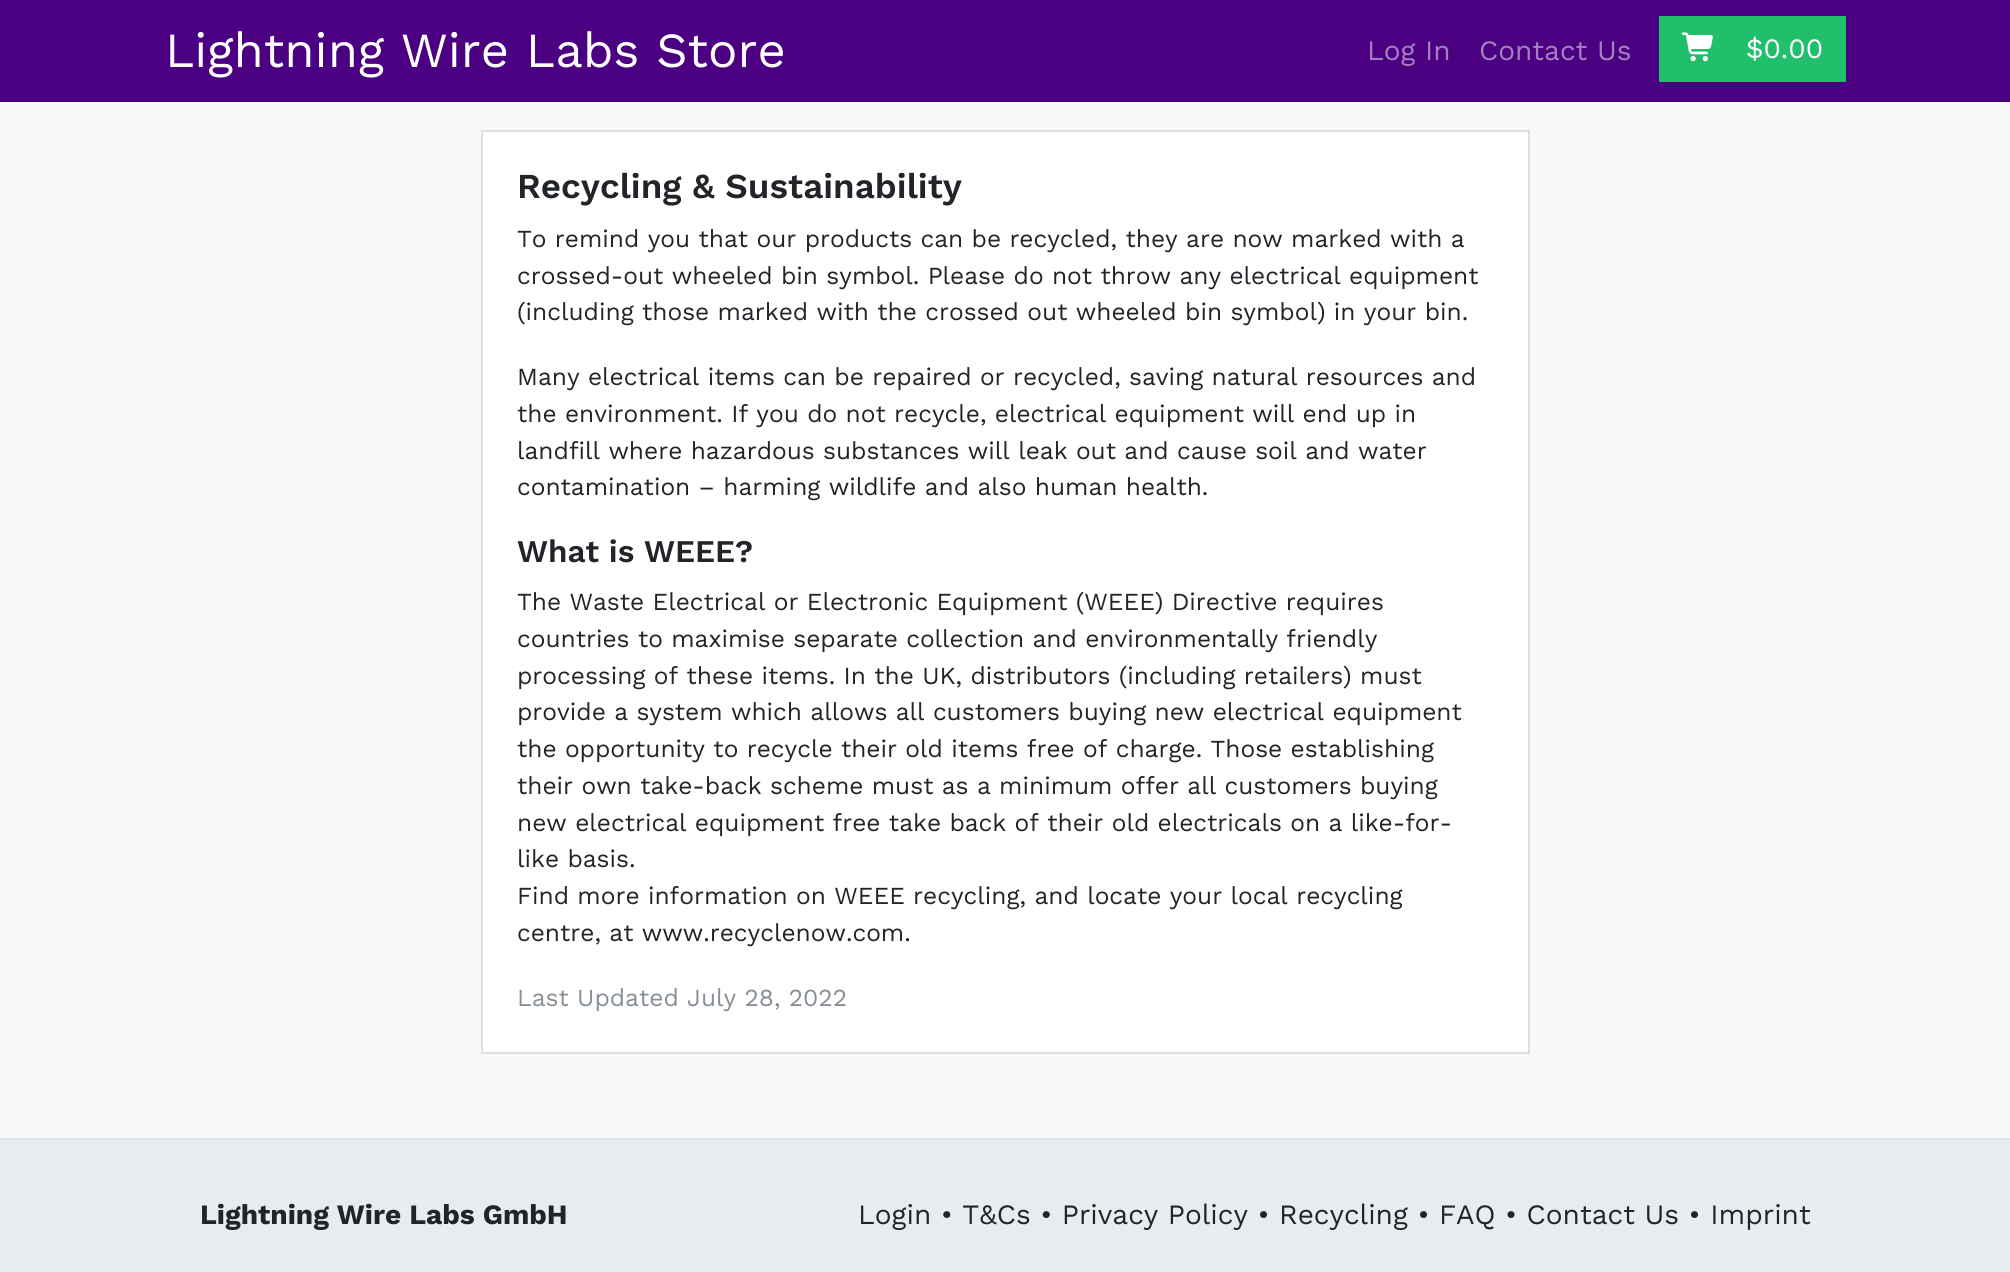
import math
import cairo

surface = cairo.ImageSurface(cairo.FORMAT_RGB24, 2010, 1272)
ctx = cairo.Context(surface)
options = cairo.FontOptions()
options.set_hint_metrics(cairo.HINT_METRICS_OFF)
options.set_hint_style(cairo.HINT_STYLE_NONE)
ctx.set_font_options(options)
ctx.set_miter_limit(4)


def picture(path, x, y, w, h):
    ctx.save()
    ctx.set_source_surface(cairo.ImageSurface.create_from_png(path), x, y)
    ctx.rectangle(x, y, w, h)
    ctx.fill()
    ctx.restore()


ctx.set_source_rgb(0.973, 0.976, 0.98)
ctx.paint()
ctx.set_source_rgb(0.294, 0, 0.51)
ctx.rectangle(0, 0, 2010, 102)
ctx.fill()
ctx.select_font_face("Work Sans")
ctx.set_font_size(49)
ctx.set_source_rgb(1, 1, 1)
ctx.move_to(165, 67)
ctx.show_text("Lightning Wire Labs Store")
ctx.set_font_size(28)
ctx.set_source_rgb(0.647, 0.502, 0.757)
ctx.move_to(1367, 60)
ctx.show_text("Log In")
ctx.move_to(1479, 60)
ctx.show_text("Contact Us")
ctx.set_source_rgb(0.125, 0.749, 0.42)
ctx.rectangle(1659, 16, 187, 66)
ctx.fill()
picture("img1.png", 1681, 32, 32, 30)
ctx.set_source_rgb(1, 1, 1)
ctx.move_to(1746, 58)
ctx.show_text("$0.00")
ctx.rectangle(482, 131, 1047, 922)
ctx.fill_preserve()
ctx.set_source_rgb(0.875, 0.875, 0.875)
ctx.stroke()
ctx.select_font_face("Work Sans SemiBold")
ctx.set_font_size(35)
ctx.set_source_rgb(0.129, 0.145, 0.161)
ctx.move_to(517, 198)
ctx.show_text("Recycling & Sustainability")
ctx.select_font_face("Work Sans")
ctx.set_font_size(24.5)
ctx.move_to(517, 247)
ctx.show_text("To remind you that our products can be recycled, they are now marked with a")
ctx.move_to(517, 284)
ctx.show_text("crossed-out wheeled bin symbol. Please do not throw any electrical equipment")
ctx.move_to(517, 320)
ctx.show_text("(including those marked with the crossed out wheeled bin symbol) in your bin.")
ctx.move_to(517, 385)
ctx.show_text("Many electrical items can be repaired or recycled, saving natural resources and")
ctx.move_to(517, 422)
ctx.show_text("the environment. If you do not recycle, electrical equipment will end up in")
ctx.move_to(517, 459)
ctx.show_text("landfill where hazardous substances will leak out and cause soil and water")
ctx.move_to(517, 495)
ctx.show_text("contamination – harming wildlife and also human health.")
ctx.select_font_face("Work Sans SemiBold")
ctx.set_font_size(31.5)
ctx.move_to(517, 562)
ctx.show_text("What is WEEE?")
ctx.select_font_face("Work Sans")
ctx.set_font_size(24.5)
ctx.move_to(517, 610)
ctx.show_text("The Waste Electrical or Electronic Equipment (WEEE) Directive requires")
ctx.move_to(517, 647)
ctx.show_text("countries to maximise separate collection and environmentally friendly")
ctx.move_to(517, 684)
ctx.show_text("processing of these items. In the UK, distributors (including retailers) must")
ctx.move_to(517, 720)
ctx.show_text("provide a system which allows all customers buying new electrical equipment")
ctx.move_to(517, 757)
ctx.show_text("the opportunity to recycle their old items free of charge. Those establishing")
ctx.move_to(517, 794)
ctx.show_text("their own take-back scheme must as a minimum offer all customers buying")
ctx.move_to(517, 831)
ctx.show_text("new electrical equipment free take back of their old electricals on a like-for-")
ctx.move_to(517, 867)
ctx.show_text("like basis.")
ctx.move_to(517, 904)
ctx.show_text("Find more information on WEEE recycling, and locate your local recycling")
ctx.move_to(517, 941)
ctx.show_text("centre, at www.recyclenow.com.")
ctx.set_source_rgb(0.525, 0.557, 0.588)
ctx.move_to(517, 1006)
ctx.show_text("Last Updated July 28, 2022")
ctx.set_source_rgb(0.914, 0.925, 0.937)
ctx.rectangle(0, 1140, 2010, 132)
ctx.fill()
ctx.set_source_rgb(0.871, 0.886, 0.902)
ctx.rectangle(0, 1138, 2010, 2)
ctx.fill()
ctx.select_font_face("Work Sans", cairo.FONT_SLANT_NORMAL, cairo.FONT_WEIGHT_BOLD)
ctx.set_font_size(28)
ctx.set_source_rgb(0.129, 0.145, 0.161)
ctx.move_to(200, 1224)
ctx.show_text("Lightning Wire Labs GmbH")
ctx.select_font_face("Work Sans")
ctx.move_to(858, 1224)
ctx.show_text("Login • T&Cs • Privacy Policy • Recycling • FAQ • Contact Us • Imprint")
surface.write_to_png("page.png")
